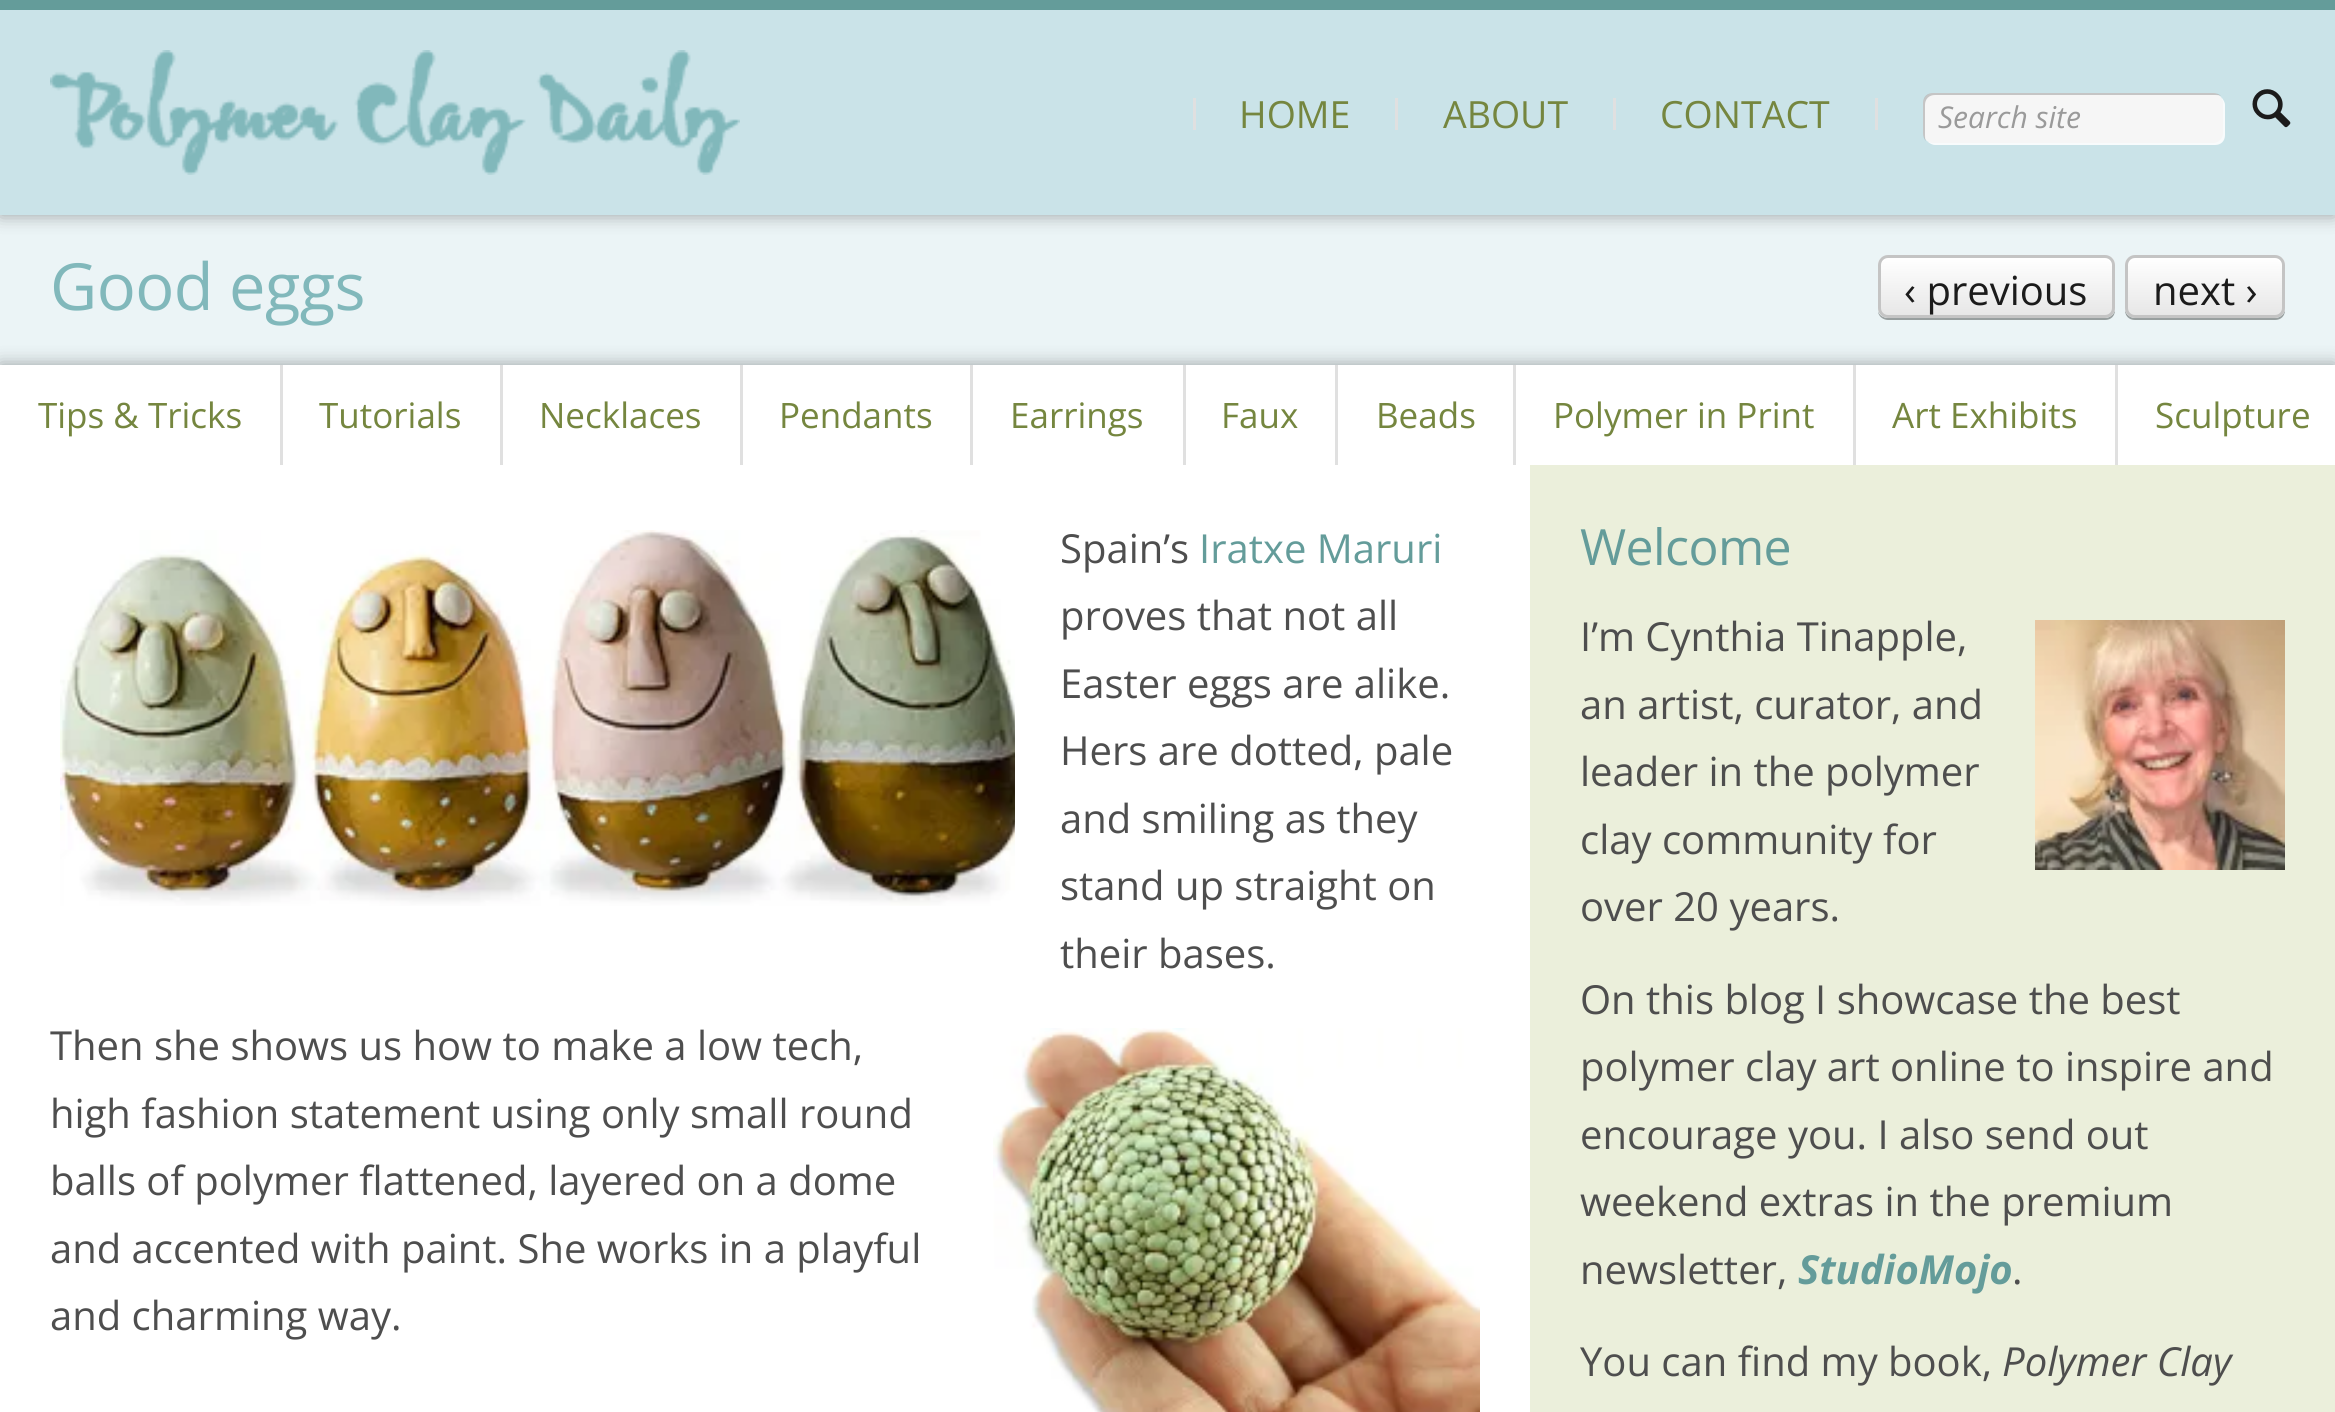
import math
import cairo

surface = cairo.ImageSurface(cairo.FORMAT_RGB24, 2335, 1412)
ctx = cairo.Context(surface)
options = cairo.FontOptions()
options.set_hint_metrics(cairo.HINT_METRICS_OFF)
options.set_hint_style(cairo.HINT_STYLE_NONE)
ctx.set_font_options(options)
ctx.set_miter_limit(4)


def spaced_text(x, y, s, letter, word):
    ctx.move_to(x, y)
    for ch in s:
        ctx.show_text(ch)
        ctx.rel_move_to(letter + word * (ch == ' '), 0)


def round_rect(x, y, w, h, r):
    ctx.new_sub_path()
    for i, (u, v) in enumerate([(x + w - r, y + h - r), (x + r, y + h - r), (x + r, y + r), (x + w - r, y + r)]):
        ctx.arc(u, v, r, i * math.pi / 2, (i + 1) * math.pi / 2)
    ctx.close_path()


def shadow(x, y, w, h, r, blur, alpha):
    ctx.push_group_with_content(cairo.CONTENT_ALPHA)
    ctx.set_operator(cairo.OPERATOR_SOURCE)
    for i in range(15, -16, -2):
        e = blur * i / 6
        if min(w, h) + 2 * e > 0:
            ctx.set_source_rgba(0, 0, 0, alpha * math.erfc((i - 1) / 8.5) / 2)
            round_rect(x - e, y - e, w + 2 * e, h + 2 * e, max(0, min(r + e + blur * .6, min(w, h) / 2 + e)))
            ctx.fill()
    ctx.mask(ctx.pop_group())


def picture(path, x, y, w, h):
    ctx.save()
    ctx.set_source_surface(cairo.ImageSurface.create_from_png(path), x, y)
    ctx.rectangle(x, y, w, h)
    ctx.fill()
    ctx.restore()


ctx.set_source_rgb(0.918, 0.957, 0.961)
ctx.paint()
ctx.set_source_rgb(0, 0, 0)
shadow(0, 10, 2335, 205, 0, 9, 0.35)
ctx.set_source_rgb(0.392, 0.612, 0.604)
ctx.rectangle(0, 0, 2335, 10)
ctx.fill()
ctx.set_source_rgb(0.792, 0.89, 0.91)
ctx.rectangle(0, 10, 2335, 205)
ctx.fill()
picture("img1.png", 50, 50, 690, 125)
ctx.set_source_rgb(0.878, 0.878, 0.878)
ctx.rectangle(1193, 98, 3, 32)
ctx.fill()
ctx.select_font_face("Open Sans")
ctx.set_font_size(37.5)
ctx.set_source_rgb(0.459, 0.525, 0.247)
ctx.move_to(1239, 128)
ctx.show_text("HOME")
ctx.set_source_rgb(0.878, 0.878, 0.878)
ctx.rectangle(1395, 98, 3, 32)
ctx.fill()
ctx.set_source_rgb(0.459, 0.525, 0.247)
ctx.move_to(1443, 128)
ctx.show_text("ABOUT")
ctx.set_source_rgb(0.878, 0.878, 0.878)
ctx.rectangle(1613, 98, 3, 32)
ctx.fill()
ctx.set_source_rgb(0.459, 0.525, 0.247)
ctx.move_to(1660, 128)
ctx.show_text("CONTACT")
ctx.set_source_rgb(0.878, 0.878, 0.878)
ctx.rectangle(1875, 98, 3, 32)
ctx.fill()
ctx.set_source_rgb(0.969, 0.984, 0.988)
ctx.new_path()
ctx.move_to(1927, 141)
ctx.curve_to(1929, 143, 1932, 145, 1935, 145)
ctx.line_to(2215, 145)
ctx.curve_to(2221, 145, 2225, 141, 2225, 135)
ctx.line_to(2225, 105)
ctx.curve_to(2225, 102, 2223, 99, 2221, 97)
ctx.curve_to(2222, 98, 2222, 100, 2222, 102)
ctx.line_to(2222, 132)
ctx.curve_to(2222, 138, 2218, 142, 2212, 142)
ctx.line_to(1932, 142)
ctx.curve_to(1930, 142, 1928, 142, 1927, 141)
ctx.close_path()
ctx.fill()
ctx.set_source_rgb(0.961, 0.961, 0.961)
round_rect(1923, 93, 300, 50, 10)
ctx.fill()
ctx.set_source_rgba(0, 0, 0, 0.2)
ctx.new_path()
ctx.move_to(1935, 95)
ctx.line_to(2215, 95)
ctx.curve_to(2217, 95, 2219, 95, 2221, 96)
ctx.curve_to(2219, 94, 2216, 93, 2213, 93)
ctx.line_to(1933, 93)
ctx.curve_to(1927, 93, 1923, 97, 1923, 103)
ctx.line_to(1923, 133)
ctx.curve_to(1923, 136, 1924, 139, 1926, 141)
ctx.curve_to(1925, 139, 1925, 137, 1925, 135)
ctx.line_to(1925, 105)
ctx.curve_to(1925, 99, 1929, 95, 1935, 95)
ctx.close_path()
ctx.fill()
ctx.select_font_face("Open Sans", cairo.FONT_SLANT_ITALIC)
ctx.set_font_size(30)
ctx.set_source_rgb(0.604, 0.604, 0.604)
ctx.move_to(1938, 128)
ctx.show_text("Search site")
picture("img2.png", 2252, 89, 39, 39)
ctx.select_font_face("Open Sans")
ctx.set_font_size(65)
ctx.set_source_rgb(0.506, 0.722, 0.733)
spaced_text(50, 310, "Good eggs", -0.6, 0)
ctx.set_source_rgb(0.596, 0.624, 0.624)
ctx.new_path()
ctx.move_to(1878, 311)
ctx.curve_to(1878, 316, 1883, 320, 1888, 320)
ctx.line_to(2105, 320)
ctx.curve_to(2111, 320, 2115, 316, 2115, 310)
ctx.line_to(2115, 308)
ctx.curve_to(2115, 313, 2111, 318, 2105, 318)
ctx.line_to(1888, 318)
ctx.curve_to(1883, 318, 1879, 315, 1878, 311)
ctx.close_path()
ctx.fill()
ctx.save()
round_rect(1878, 255, 237, 63, 10)
ctx.clip()
gradient = cairo.LinearGradient(1996, 258, 1996, 315)
gradient.add_color_stop_rgba(0, 1, 1, 1, 1)
gradient.add_color_stop_rgba(1, 0.906, 0.906, 0.906, 1)
ctx.set_source(gradient)
ctx.rectangle(1878, 258, 237, 57)
ctx.fill()
ctx.restore()
ctx.set_source_rgba(1, 1, 1, 0.85)
ctx.new_path()
ctx.move_to(1888, 260)
ctx.line_to(2105, 260)
ctx.curve_to(2109, 260, 2112, 263, 2112, 268)
ctx.line_to(2112, 311)
ctx.curve_to(2113, 310, 2113, 308, 2113, 307)
ctx.line_to(2113, 266)
ctx.curve_to(2113, 262, 2109, 258, 2105, 258)
ctx.line_to(1888, 258)
ctx.curve_to(1884, 258, 1880, 262, 1880, 266)
ctx.line_to(1880, 268)
ctx.curve_to(1880, 263, 1883, 260, 1888, 260)
ctx.close_path()
ctx.fill()
round_rect(1879.5, 256.5, 234, 60, 8.5)
ctx.set_source_rgb(0.769, 0.769, 0.769)
ctx.set_line_width(3)
ctx.stroke()
ctx.set_font_size(40)
ctx.set_source_rgb(0.106, 0.106, 0.106)
ctx.move_to(1904, 305)
ctx.show_text("‹ previous")
ctx.set_source_rgb(0.596, 0.624, 0.624)
ctx.new_path()
ctx.move_to(2125, 308)
ctx.line_to(2125, 310)
ctx.curve_to(2125, 316, 2129, 320, 2135, 320)
ctx.line_to(2275, 320)
ctx.curve_to(2281, 320, 2285, 316, 2285, 310)
ctx.line_to(2285, 308)
ctx.curve_to(2285, 313, 2281, 318, 2275, 318)
ctx.line_to(2135, 318)
ctx.curve_to(2129, 318, 2125, 313, 2125, 308)
ctx.close_path()
ctx.fill()
ctx.save()
round_rect(2125, 255, 160, 63, 10)
ctx.clip()
gradient = cairo.LinearGradient(2205, 258, 2205, 315)
gradient.add_color_stop_rgba(0, 1, 1, 1, 1)
gradient.add_color_stop_rgba(1, 0.906, 0.906, 0.906, 1)
ctx.set_source(gradient)
ctx.rectangle(2125, 258, 160, 57)
ctx.fill()
ctx.restore()
ctx.set_source_rgba(1, 1, 1, 0.85)
ctx.new_path()
ctx.move_to(2135, 260)
ctx.line_to(2275, 260)
ctx.curve_to(2283, 260, 2282, 270, 2282, 275)
ctx.line_to(2282, 311)
ctx.curve_to(2283, 310, 2283, 308, 2283, 307)
ctx.line_to(2283, 266)
ctx.curve_to(2283, 262, 2279, 258, 2275, 258)
ctx.line_to(2136, 258)
ctx.curve_to(2132, 258, 2128, 262, 2128, 266)
ctx.line_to(2128, 268)
ctx.curve_to(2128, 263, 2131, 260, 2135, 260)
ctx.close_path()
ctx.fill()
round_rect(2126.5, 256.5, 157, 60, 8.5)
ctx.set_source_rgb(0.769, 0.769, 0.769)
ctx.stroke()
ctx.set_source_rgb(0.106, 0.106, 0.106)
ctx.move_to(2153, 305)
ctx.show_text("next ›")
ctx.set_source_rgb(0, 0, 0)
shadow(0, 365, 2335, 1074, 0, 9, 0.35)
ctx.set_source_rgb(1, 1, 1)
ctx.rectangle(0, 365, 2335, 1047)
ctx.fill()
ctx.set_source_rgb(0.878, 0.878, 0.878)
ctx.rectangle(280, 365, 3, 100)
ctx.fill()
ctx.set_font_size(35)
ctx.set_source_rgb(0.459, 0.525, 0.247)
ctx.move_to(38, 428)
ctx.show_text("Tips & Tricks")
ctx.set_source_rgb(0.878, 0.878, 0.878)
ctx.rectangle(500, 365, 3, 100)
ctx.fill()
ctx.set_source_rgb(0.459, 0.525, 0.247)
ctx.move_to(319, 428)
ctx.show_text("Tutorials")
ctx.set_source_rgb(0.878, 0.878, 0.878)
ctx.rectangle(740, 365, 3, 100)
ctx.fill()
ctx.set_source_rgb(0.459, 0.525, 0.247)
ctx.move_to(539, 428)
ctx.show_text("Necklaces")
ctx.set_source_rgb(0.878, 0.878, 0.878)
ctx.rectangle(970, 365, 3, 100)
ctx.fill()
ctx.set_source_rgb(0.459, 0.525, 0.247)
ctx.move_to(779, 428)
ctx.show_text("Pendants")
ctx.set_source_rgb(0.878, 0.878, 0.878)
ctx.rectangle(1183, 365, 3, 100)
ctx.fill()
ctx.set_source_rgb(0.459, 0.525, 0.247)
ctx.move_to(1010, 428)
ctx.show_text("Earrings")
ctx.set_source_rgb(0.878, 0.878, 0.878)
ctx.rectangle(1335, 365, 3, 100)
ctx.fill()
ctx.set_source_rgb(0.459, 0.525, 0.247)
ctx.move_to(1221, 428)
ctx.show_text("Faux")
ctx.set_source_rgb(0.878, 0.878, 0.878)
ctx.rectangle(1513, 365, 3, 100)
ctx.fill()
ctx.set_source_rgb(0.459, 0.525, 0.247)
ctx.move_to(1376, 428)
ctx.show_text("Beads")
ctx.set_source_rgb(0.878, 0.878, 0.878)
ctx.rectangle(1853, 365, 3, 100)
ctx.fill()
ctx.set_source_rgb(0.459, 0.525, 0.247)
ctx.move_to(1553, 428)
ctx.show_text("Polymer in Print")
ctx.set_source_rgb(0.878, 0.878, 0.878)
ctx.rectangle(2115, 365, 3, 100)
ctx.fill()
ctx.set_source_rgb(0.459, 0.525, 0.247)
ctx.move_to(1892, 428)
ctx.show_text("Art Exhibits")
ctx.move_to(2155, 428)
ctx.show_text("Sculpture")
picture("img3.png", 60, 530, 955, 376)
ctx.set_font_size(40)
ctx.set_source_rgb(0.306, 0.306, 0.306)
ctx.move_to(1060, 563)
ctx.show_text("Spain’s")
ctx.set_source_rgb(0.392, 0.612, 0.604)
ctx.move_to(1199, 563)
ctx.show_text("Iratxe Maruri")
ctx.set_source_rgb(0.306, 0.306, 0.306)
ctx.move_to(1060, 630)
ctx.show_text("proves that not all")
ctx.move_to(1060, 698)
ctx.show_text("Easter eggs are alike.")
ctx.move_to(1060, 765)
ctx.show_text("Hers are dotted, pale")
ctx.move_to(1060, 833)
ctx.show_text("and smiling as they")
ctx.move_to(1060, 900)
ctx.show_text("stand up straight on")
ctx.move_to(1060, 968)
ctx.show_text("their bases.")
ctx.move_to(50, 1060)
ctx.show_text("Then she shows us how to make a low tech,")
ctx.move_to(50, 1128)
ctx.show_text("high fashion statement using only small round")
ctx.move_to(50, 1195)
ctx.show_text("balls of polymer flattened, layered on a dome")
ctx.move_to(50, 1263)
ctx.show_text("and accented with paint. She works in a playful")
ctx.move_to(50, 1330)
ctx.show_text("and charming way.")
picture("img4.png", 993, 1028, 487, 384)
ctx.set_source_rgb(0.918, 0.937, 0.859)
ctx.rectangle(1530, 465, 805, 947)
ctx.fill()
ctx.set_font_size(50)
ctx.set_source_rgb(0.392, 0.612, 0.604)
spaced_text(1580, 565, "Welcome", -0.6, 0)
ctx.set_font_size(40)
ctx.set_source_rgb(0.306, 0.306, 0.306)
ctx.move_to(1580, 651)
ctx.show_text("I’m Cynthia Tinapple,")
picture("img5.png", 2035, 620, 250, 250)
ctx.move_to(1580, 719)
ctx.show_text("an artist, curator, and")
ctx.move_to(1580, 786)
ctx.show_text("leader in the polymer")
ctx.move_to(1580, 854)
ctx.show_text("clay community for")
ctx.move_to(1580, 921)
ctx.show_text("over 20 years.")
ctx.move_to(1580, 1014)
ctx.show_text("On this blog I showcase the best")
ctx.move_to(1580, 1081)
ctx.show_text("polymer clay art online to inspire and")
ctx.move_to(1580, 1149)
ctx.show_text("encourage you. I also send out")
ctx.move_to(1580, 1216)
ctx.show_text("weekend extras in the premium")
ctx.move_to(1580, 1284)
ctx.show_text("newsletter,")
ctx.select_font_face("Open Sans", cairo.FONT_SLANT_ITALIC, cairo.FONT_WEIGHT_BOLD)
ctx.set_source_rgb(0.392, 0.612, 0.604)
ctx.move_to(1798, 1284)
ctx.show_text("StudioMojo")
ctx.select_font_face("Open Sans")
ctx.set_source_rgb(0.306, 0.306, 0.306)
ctx.move_to(2012, 1284)
ctx.show_text(".")
ctx.move_to(1580, 1376)
ctx.show_text("You can find my book,")
ctx.select_font_face("Open Sans", cairo.FONT_SLANT_ITALIC)
ctx.move_to(2002, 1376)
ctx.show_text("Polymer Clay")
surface.write_to_png("page.png")
